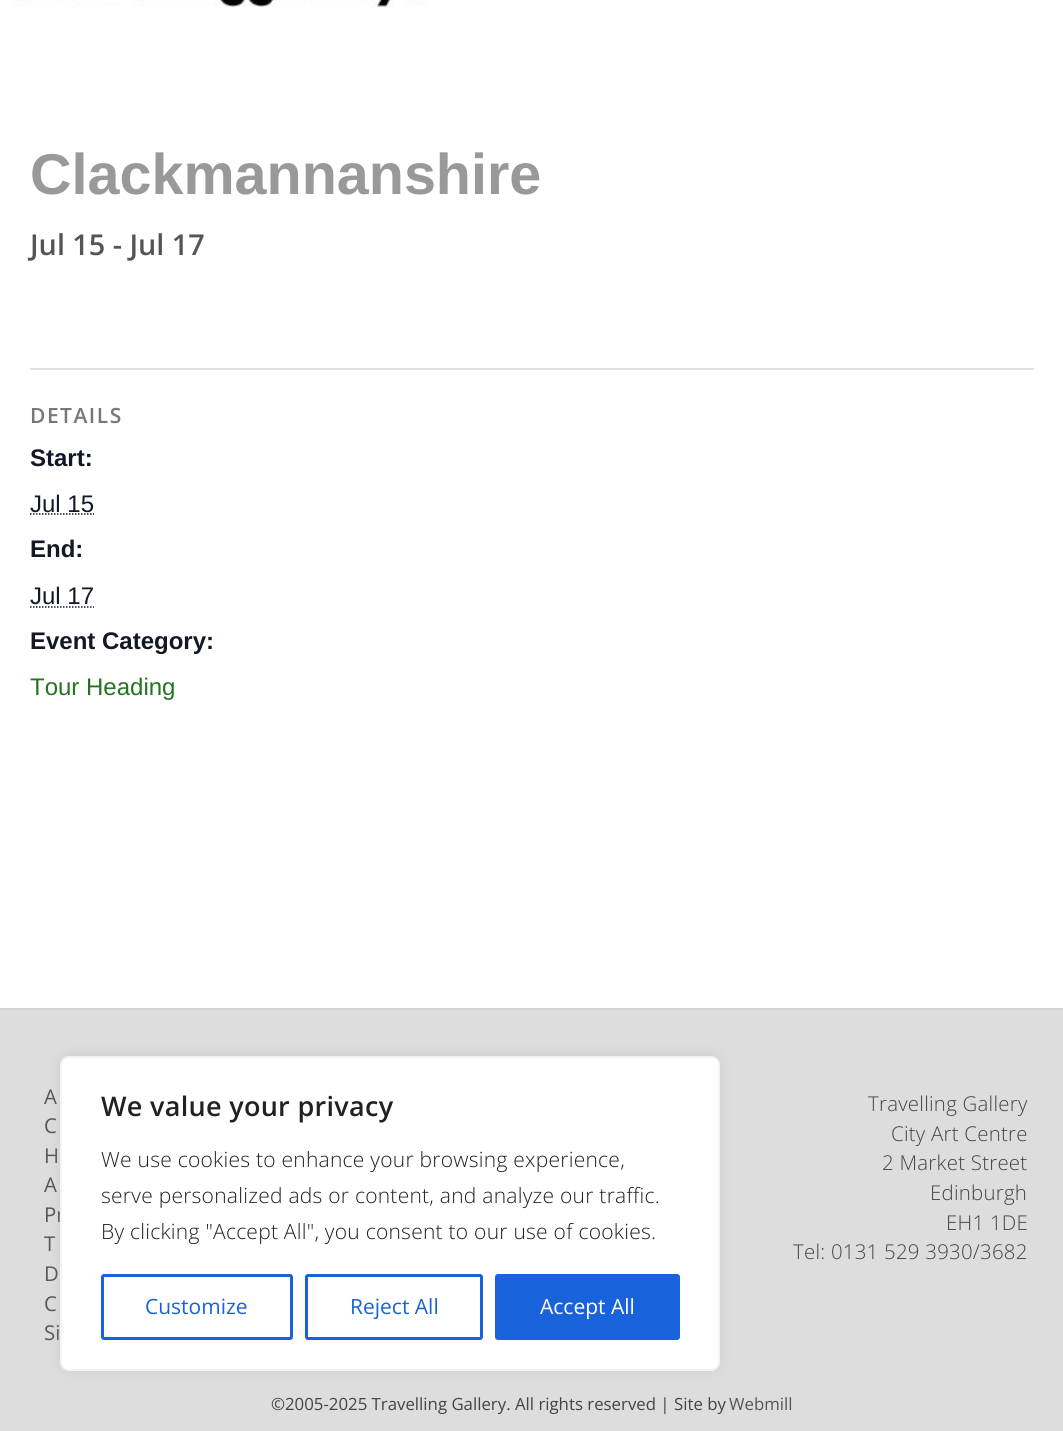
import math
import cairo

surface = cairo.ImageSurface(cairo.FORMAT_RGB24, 1063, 1431)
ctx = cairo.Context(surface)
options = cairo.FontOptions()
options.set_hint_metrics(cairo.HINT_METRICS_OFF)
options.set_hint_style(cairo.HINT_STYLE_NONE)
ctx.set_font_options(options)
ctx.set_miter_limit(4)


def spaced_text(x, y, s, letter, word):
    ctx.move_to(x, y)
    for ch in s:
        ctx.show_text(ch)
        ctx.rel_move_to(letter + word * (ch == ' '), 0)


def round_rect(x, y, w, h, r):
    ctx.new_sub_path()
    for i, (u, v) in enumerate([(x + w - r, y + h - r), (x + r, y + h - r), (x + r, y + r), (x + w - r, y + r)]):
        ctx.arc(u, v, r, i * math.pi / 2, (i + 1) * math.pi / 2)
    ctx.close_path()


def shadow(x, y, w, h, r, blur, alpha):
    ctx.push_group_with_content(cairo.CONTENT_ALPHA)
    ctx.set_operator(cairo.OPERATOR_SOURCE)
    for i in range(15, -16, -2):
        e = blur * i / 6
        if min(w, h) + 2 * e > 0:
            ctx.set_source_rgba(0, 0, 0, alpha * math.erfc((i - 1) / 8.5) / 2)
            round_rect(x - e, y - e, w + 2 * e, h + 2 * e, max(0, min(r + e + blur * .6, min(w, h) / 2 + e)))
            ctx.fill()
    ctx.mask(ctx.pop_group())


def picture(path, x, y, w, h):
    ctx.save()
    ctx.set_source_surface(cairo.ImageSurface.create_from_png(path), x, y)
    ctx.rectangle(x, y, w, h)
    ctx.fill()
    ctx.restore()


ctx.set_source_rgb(1, 1, 1)
ctx.paint()
picture("img1.png", 10, 0, 419, 7)
ctx.select_font_face("Liberation Sans", cairo.FONT_SLANT_NORMAL, cairo.FONT_WEIGHT_BOLD)
ctx.set_font_size(57.5)
ctx.set_source_rgb(0.6, 0.6, 0.6)
ctx.move_to(30, 194)
ctx.show_text("Clackmannanshire")
ctx.select_font_face("Open Sans SemiBold")
ctx.set_font_size(28.75)
ctx.set_source_rgb(0.333, 0.333, 0.333)
ctx.move_to(30, 255)
ctx.show_text("Jul 15 - Jul 17")
ctx.set_source_rgb(0.894, 0.894, 0.894)
ctx.rectangle(30, 368, 1004, 2)
ctx.fill()
ctx.set_font_size(21)
ctx.set_source_rgb(0.467, 0.467, 0.467)
spaced_text(30, 423, "DETAILS", 1.5, 0)
ctx.select_font_face("Liberation Sans", cairo.FONT_SLANT_NORMAL, cairo.FONT_WEIGHT_BOLD)
ctx.set_font_size(24)
ctx.set_source_rgb(0.078, 0.094, 0.153)
ctx.move_to(30, 466)
ctx.show_text("Start:")
ctx.select_font_face("Liberation Sans")
ctx.move_to(30, 512)
ctx.show_text("Jul 15")
ctx.new_path()
ctx.move_to(30, 514)
ctx.line_to(94, 514)
ctx.set_line_width(1.5)
ctx.set_dash([1.5, 1.5])
ctx.stroke()
ctx.select_font_face("Liberation Sans", cairo.FONT_SLANT_NORMAL, cairo.FONT_WEIGHT_BOLD)
ctx.move_to(30, 557)
ctx.show_text("End:")
ctx.select_font_face("Liberation Sans")
ctx.move_to(30, 604)
ctx.show_text("Jul 17")
ctx.new_path()
ctx.move_to(30, 607)
ctx.line_to(94, 607)
ctx.stroke()
ctx.select_font_face("Liberation Sans", cairo.FONT_SLANT_NORMAL, cairo.FONT_WEIGHT_BOLD)
ctx.move_to(30, 649)
ctx.show_text("Event Category:")
ctx.select_font_face("Liberation Sans")
ctx.set_source_rgb(0.137, 0.451, 0.129)
ctx.move_to(30, 695)
ctx.show_text("Tour Heading")
ctx.set_source_rgb(0.867, 0.867, 0.867)
ctx.rectangle(0, 1010, 1063, 421)
ctx.fill()
ctx.set_source_rgb(0.831, 0.831, 0.831)
ctx.rectangle(0, 1008, 1063, 2)
ctx.fill()
ctx.select_font_face("Open Sans")
ctx.set_font_size(20.4)
ctx.set_source_rgb(0.333, 0.333, 0.333)
ctx.move_to(44, 1104)
ctx.show_text("A")
ctx.move_to(44, 1133)
ctx.show_text("C")
ctx.move_to(44, 1163)
ctx.show_text("H")
ctx.move_to(44, 1192)
ctx.show_text("A")
ctx.move_to(44, 1222)
ctx.show_text("Pr")
ctx.move_to(44, 1251)
ctx.show_text("T")
ctx.move_to(44, 1281)
ctx.show_text("D")
ctx.move_to(44, 1311)
ctx.show_text("C")
ctx.move_to(44, 1340)
ctx.show_text("Si")
ctx.select_font_face("Open Sans Light")
ctx.set_source_rgb(0.267, 0.267, 0.267)
spaced_text(868, 1111, "Travelling Gallery", 0.25, 0)
spaced_text(891, 1141, "City Art Centre", 0.25, 0)
spaced_text(882, 1170, "2 Market Street", 0.25, 0)
spaced_text(930, 1200, "Edinburgh", 0.25, 0)
spaced_text(946, 1230, "EH1 1DE", 0.25, 0)
spaced_text(793, 1259, "Tel: 0131 529 3930/3682", 0.25, 0)
ctx.select_font_face("Open Sans")
ctx.set_font_size(16.8)
ctx.move_to(271, 1410)
ctx.show_text("©2005-2025 Travelling Gallery. All rights reserved | Site by")
ctx.set_source_rgb(0.333, 0.333, 0.333)
ctx.move_to(729, 1410)
ctx.show_text("Webmill")
ctx.set_source_rgb(0.675, 0.671, 0.671)
shadow(60, 1055, 660, 315, 9, 7.5, 0.3)
ctx.set_source_rgb(1, 1, 1)
round_rect(61, 1057, 658, 313, 8)
ctx.fill_preserve()
ctx.set_source_rgb(0.957, 0.957, 0.957)
ctx.set_line_width(2)
ctx.set_dash([])
ctx.stroke()
ctx.select_font_face("Open Sans SemiBold")
ctx.set_font_size(27)
ctx.set_source_rgb(0.129, 0.129, 0.129)
spaced_text(101, 1116, "We value your privacy", 0.3, 0)
ctx.select_font_face("Open Sans Light")
ctx.set_font_size(21)
spaced_text(101, 1167, "We use cookies to enhance your browsing experience,", 0.25, 0)
spaced_text(101, 1203, "serve personalized ads or content, and analyze our traffic.", 0.25, 0)
spaced_text(101, 1239, "By clicking \"Accept All\", you consent to our use of cookies.", 0.25, 0)
round_rect(102.5, 1275.5, 189, 63, 1.5)
ctx.set_source_rgb(0.094, 0.388, 0.863)
ctx.set_line_width(3)
ctx.stroke()
ctx.select_font_face("Open Sans")
ctx.move_to(145, 1314)
ctx.show_text("Customize")
round_rect(306.5, 1275.5, 175, 63, 1.5)
ctx.stroke()
ctx.move_to(350, 1314)
ctx.show_text("Reject All")
round_rect(496.5, 1275.5, 182, 63, 1.5)
ctx.fill_preserve()
ctx.stroke()
ctx.set_source_rgb(1, 1, 1)
ctx.move_to(540, 1314)
ctx.show_text("Accept All")
surface.write_to_png("page.png")
